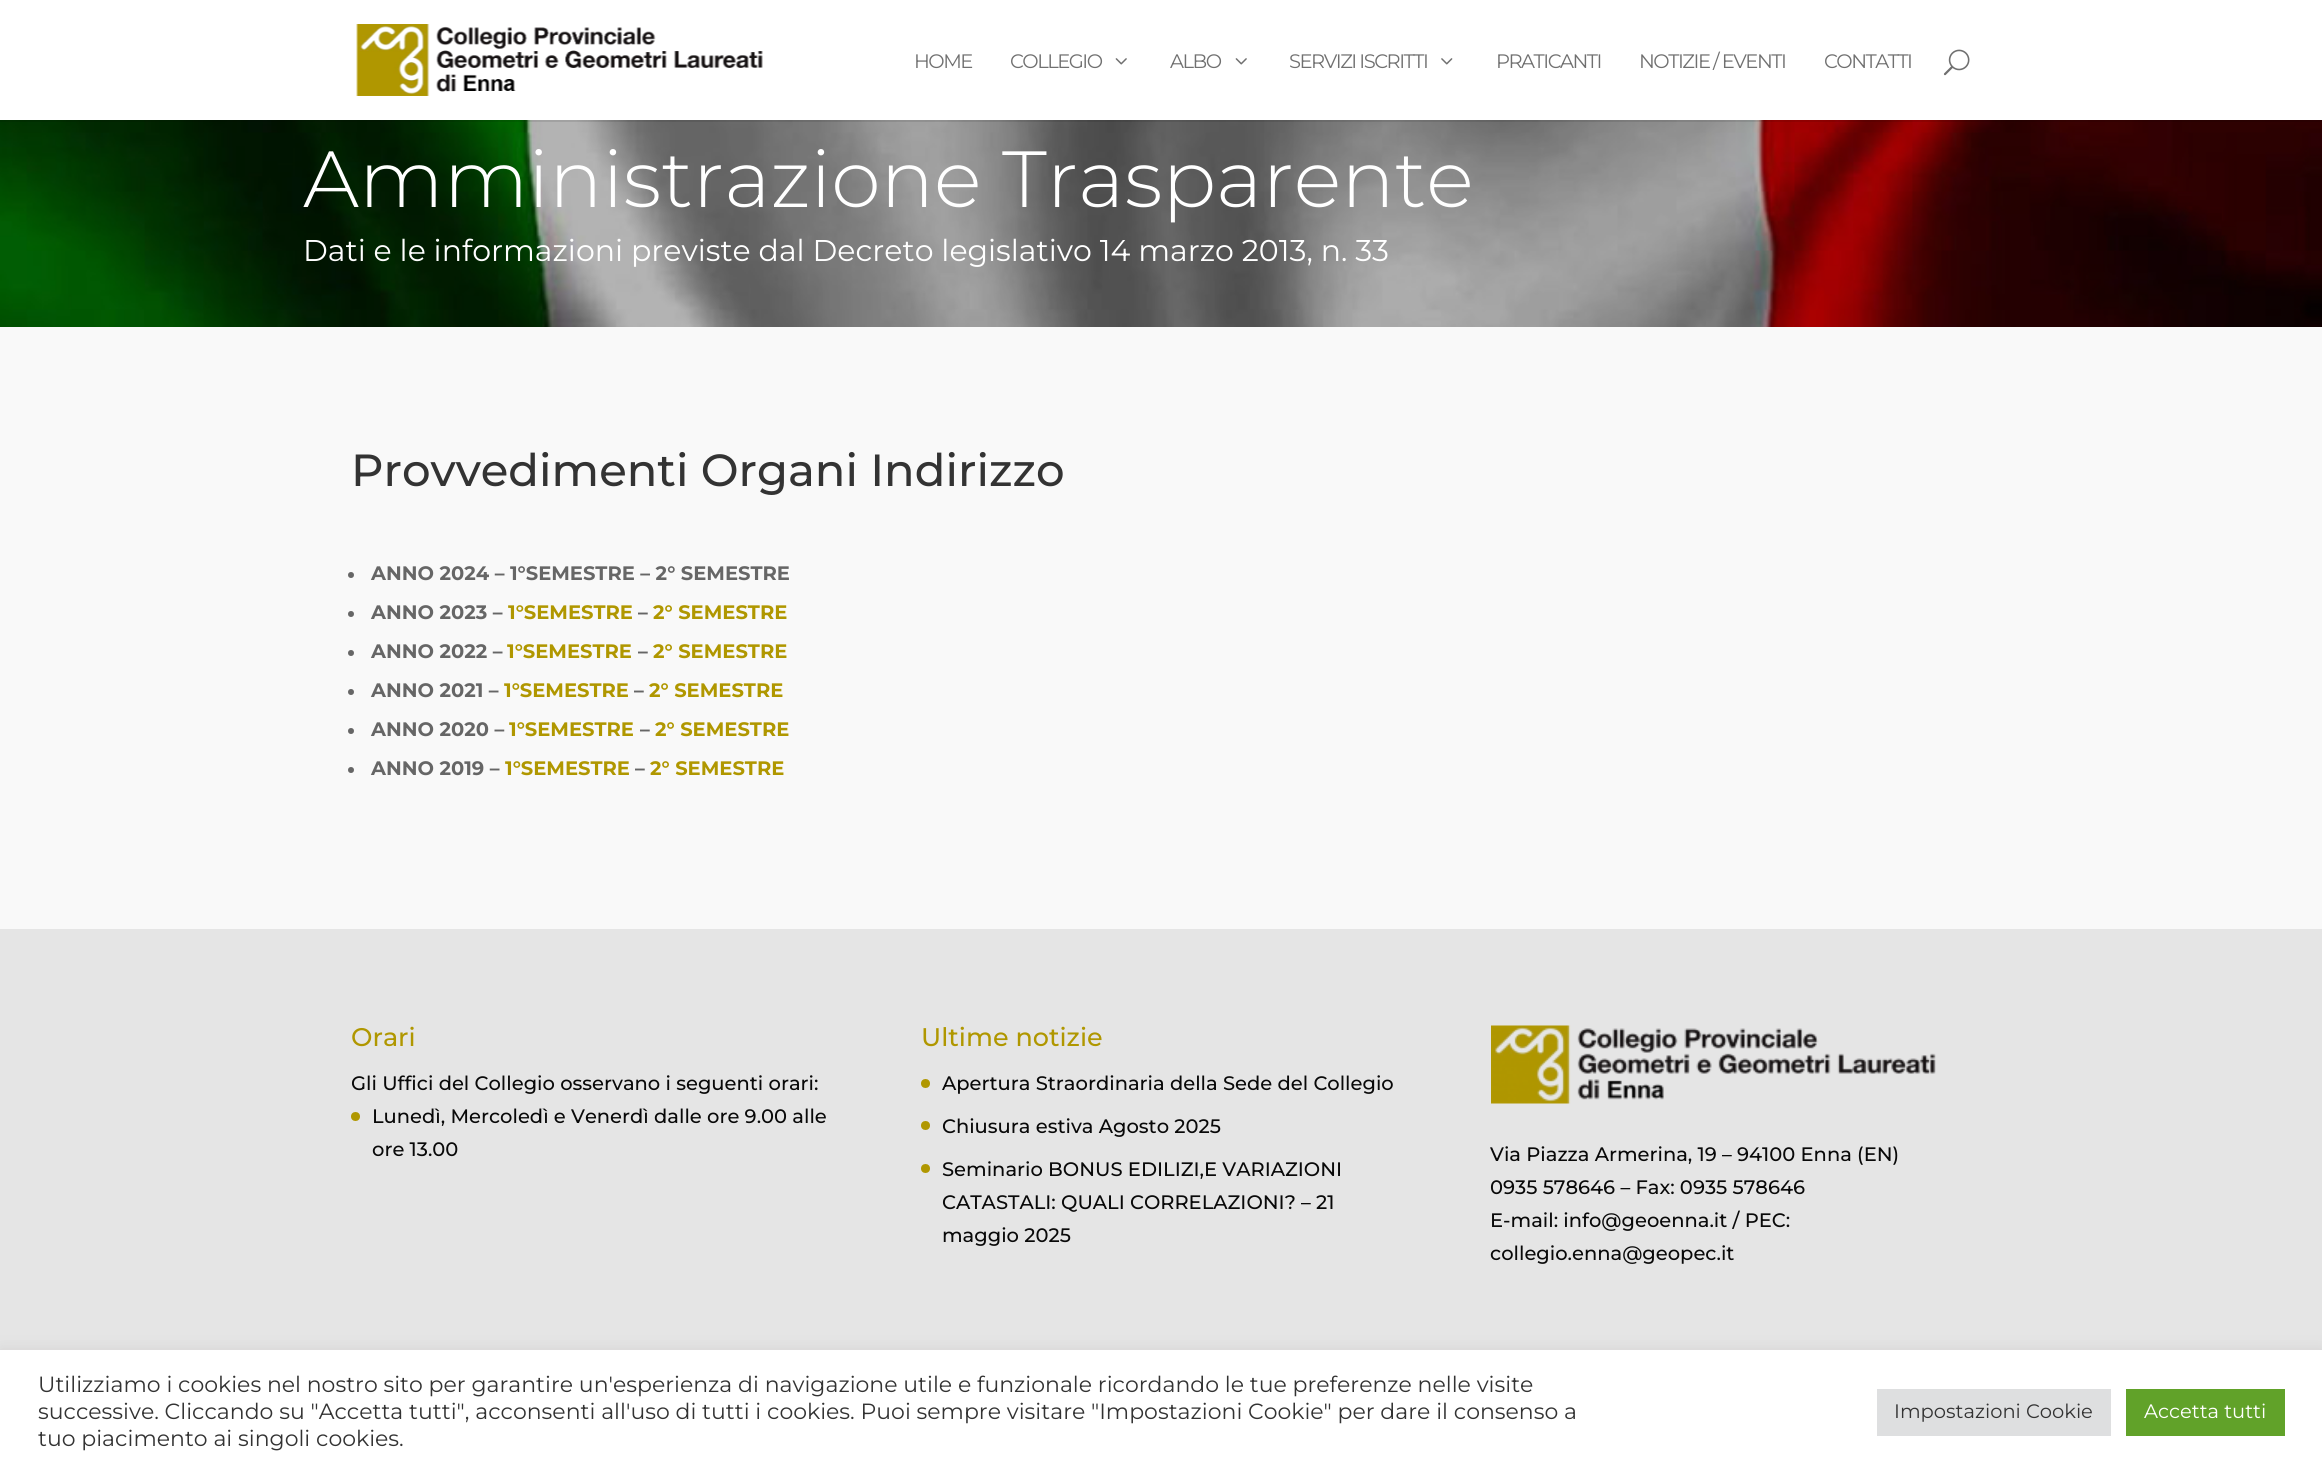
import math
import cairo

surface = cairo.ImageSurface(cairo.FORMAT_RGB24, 2322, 1472)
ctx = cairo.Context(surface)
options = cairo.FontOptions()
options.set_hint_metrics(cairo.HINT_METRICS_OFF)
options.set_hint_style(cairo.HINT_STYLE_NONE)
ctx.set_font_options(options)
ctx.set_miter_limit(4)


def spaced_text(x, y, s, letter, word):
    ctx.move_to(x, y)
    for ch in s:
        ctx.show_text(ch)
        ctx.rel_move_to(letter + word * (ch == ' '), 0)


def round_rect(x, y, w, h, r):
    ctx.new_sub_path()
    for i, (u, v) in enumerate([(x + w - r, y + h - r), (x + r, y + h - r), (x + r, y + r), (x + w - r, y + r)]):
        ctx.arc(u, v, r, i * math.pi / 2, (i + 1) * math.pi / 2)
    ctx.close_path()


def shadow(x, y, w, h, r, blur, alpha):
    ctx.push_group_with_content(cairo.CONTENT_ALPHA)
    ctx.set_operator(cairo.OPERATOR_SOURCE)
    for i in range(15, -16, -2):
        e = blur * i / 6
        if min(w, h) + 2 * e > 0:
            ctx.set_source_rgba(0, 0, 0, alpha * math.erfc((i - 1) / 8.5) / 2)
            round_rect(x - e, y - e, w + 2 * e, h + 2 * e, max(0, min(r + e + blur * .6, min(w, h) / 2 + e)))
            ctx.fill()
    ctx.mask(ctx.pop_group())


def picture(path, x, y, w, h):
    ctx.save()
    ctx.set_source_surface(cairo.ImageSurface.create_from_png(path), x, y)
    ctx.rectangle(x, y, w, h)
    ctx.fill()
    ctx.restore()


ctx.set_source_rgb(0.898, 0.898, 0.898)
ctx.paint()
picture("img5.png", 0, 120, 2322, 207)
ctx.set_source_rgba(0, 0, 0, 0.1)
ctx.rectangle(0, 120, 2322, 2)
ctx.fill()
ctx.set_source_rgb(1, 1, 1)
ctx.rectangle(0, 0, 2322, 120)
ctx.fill()
picture("img1.png", 356, 24, 407, 72)
ctx.select_font_face("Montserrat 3 Thin")
ctx.set_font_size(19.5)
ctx.set_source_rgb(0.439, 0.439, 0.439)
spaced_text(914, 68, "HOME", -1.5, 0)
spaced_text(1010, 68, "COLLEGIO", -1.5, 0)
picture("img2.png", 1115, 58, 12, 7)
spaced_text(1170, 68, "ALBO", -1.5, 0)
picture("img2.png", 1235, 58, 12, 7)
spaced_text(1289, 68, "SERVIZI ISCRITTI", -1.5, 0)
picture("img3.png", 1441, 58, 12, 7)
spaced_text(1496, 68, "PRATICANTI", -1.5, 0)
spaced_text(1639, 68, "NOTIZIE / EVENTI", -1.5, 0)
spaced_text(1824, 68, "CONTATTI", -1.5, 0)
picture("img4.png", 1943, 49, 27, 27)
ctx.select_font_face("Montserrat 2 Thin")
ctx.set_font_size(79.5)
ctx.set_source_rgb(1, 1, 1)
ctx.move_to(303, 207)
ctx.show_text("Amministrazione Trasparente")
ctx.select_font_face("Montserrat 3 Thin")
ctx.set_font_size(30)
ctx.move_to(303, 261)
ctx.show_text("Dati e le informazioni previste dal Decreto legislativo 14 marzo 2013, n. 33")
ctx.set_source_rgb(0.973, 0.973, 0.973)
ctx.rectangle(0, 327, 2322, 602)
ctx.fill()
ctx.select_font_face("Montserrat Thin")
ctx.set_font_size(45)
ctx.set_source_rgb(0.2, 0.2, 0.2)
ctx.move_to(351, 486)
ctx.show_text("Provvedimenti Organi Indirizzo")
ctx.set_source_rgb(0.4, 0.4, 0.4)
ctx.new_path()
ctx.arc(351, 575, 3, 0, 2 * math.pi)
ctx.fill()
ctx.select_font_face("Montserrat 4 Thin")
ctx.set_font_size(19.5)
ctx.move_to(371, 580)
ctx.show_text("ANNO 2024 – 1°SEMESTRE – 2° SEMESTRE")
ctx.new_path()
ctx.arc(351, 614, 3, 0, 2 * math.pi)
ctx.fill()
ctx.move_to(371, 619)
ctx.show_text("ANNO 2023 –")
ctx.set_source_rgb(0.69, 0.592, 0)
ctx.move_to(508, 619)
ctx.show_text("1°SEMESTRE")
ctx.set_source_rgb(0.4, 0.4, 0.4)
ctx.move_to(638, 619)
ctx.show_text("–")
ctx.set_source_rgb(0.69, 0.592, 0)
ctx.move_to(653, 619)
ctx.show_text("2° SEMESTRE")
ctx.set_source_rgb(0.4, 0.4, 0.4)
ctx.new_path()
ctx.arc(351, 653, 3, 0, 2 * math.pi)
ctx.fill()
ctx.move_to(371, 658)
ctx.show_text("ANNO 2022 –")
ctx.set_source_rgb(0.69, 0.592, 0)
ctx.move_to(507, 658)
ctx.show_text("1°SEMESTRE")
ctx.set_source_rgb(0.4, 0.4, 0.4)
ctx.move_to(638, 658)
ctx.show_text("–")
ctx.set_source_rgb(0.69, 0.592, 0)
ctx.move_to(653, 658)
ctx.show_text("2° SEMESTRE")
ctx.set_source_rgb(0.4, 0.4, 0.4)
ctx.new_path()
ctx.arc(351, 692, 3, 0, 2 * math.pi)
ctx.fill()
ctx.move_to(371, 697)
ctx.show_text("ANNO 2021 –")
ctx.set_source_rgb(0.69, 0.592, 0)
ctx.move_to(504, 697)
ctx.show_text("1°SEMESTRE")
ctx.set_source_rgb(0.4, 0.4, 0.4)
ctx.move_to(634, 697)
ctx.show_text("–")
ctx.set_source_rgb(0.69, 0.592, 0)
ctx.move_to(649, 697)
ctx.show_text("2° SEMESTRE")
ctx.set_source_rgb(0.4, 0.4, 0.4)
ctx.new_path()
ctx.arc(351, 731, 3, 0, 2 * math.pi)
ctx.fill()
ctx.move_to(371, 736)
ctx.show_text("ANNO 2020 –")
ctx.set_source_rgb(0.69, 0.592, 0)
ctx.move_to(509, 736)
ctx.show_text("1°SEMESTRE")
ctx.set_source_rgb(0.4, 0.4, 0.4)
ctx.move_to(640, 736)
ctx.show_text("–")
ctx.set_source_rgb(0.69, 0.592, 0)
ctx.move_to(655, 736)
ctx.show_text("2° SEMESTRE")
ctx.set_source_rgb(0.4, 0.4, 0.4)
ctx.new_path()
ctx.arc(351, 770, 3, 0, 2 * math.pi)
ctx.fill()
ctx.move_to(371, 775)
ctx.show_text("ANNO 2019 –")
ctx.set_source_rgb(0.69, 0.592, 0)
ctx.move_to(505, 775)
ctx.show_text("1°SEMESTRE")
ctx.set_source_rgb(0.4, 0.4, 0.4)
ctx.move_to(635, 775)
ctx.show_text("–")
ctx.set_source_rgb(0.69, 0.592, 0)
ctx.move_to(650, 775)
ctx.show_text("2° SEMESTRE")
ctx.select_font_face("Montserrat Thin")
ctx.set_font_size(25.5)
ctx.move_to(351, 1046)
ctx.show_text("Orari")
ctx.set_font_size(19.5)
ctx.set_source_rgb(0.039, 0.039, 0.039)
ctx.move_to(351, 1090)
ctx.show_text("Gli Uffici del Collegio osservano i seguenti orari:")
ctx.set_source_rgb(0.69, 0.592, 0)
ctx.new_path()
ctx.arc(355.5, 1116.5, 4.5, 0, 2 * math.pi)
ctx.fill()
ctx.set_source_rgb(0.039, 0.039, 0.039)
ctx.move_to(372, 1123)
ctx.show_text("Lunedì, Mercoledì e Venerdì dalle ore 9.00 alle")
ctx.move_to(372, 1156)
ctx.show_text("ore 13.00")
ctx.set_font_size(25.5)
ctx.set_source_rgb(0.69, 0.592, 0)
ctx.move_to(921, 1046)
ctx.show_text("Ultime notizie")
ctx.new_path()
ctx.arc(925.5, 1083.5, 4.5, 0, 2 * math.pi)
ctx.fill()
ctx.set_font_size(19.5)
ctx.set_source_rgb(0.039, 0.039, 0.039)
ctx.move_to(942, 1090)
ctx.show_text("Apertura Straordinaria della Sede del Collegio")
ctx.set_source_rgb(0.69, 0.592, 0)
ctx.new_path()
ctx.arc(925.5, 1125.5, 4.5, 0, 2 * math.pi)
ctx.fill()
ctx.set_source_rgb(0.039, 0.039, 0.039)
ctx.move_to(942, 1133)
ctx.show_text("Chiusura estiva Agosto 2025")
ctx.set_source_rgb(0.69, 0.592, 0)
ctx.new_path()
ctx.arc(925.5, 1168.5, 4.5, 0, 2 * math.pi)
ctx.fill()
ctx.set_source_rgb(0.039, 0.039, 0.039)
ctx.move_to(942, 1176)
ctx.show_text("Seminario BONUS EDILIZI,E VARIAZIONI")
ctx.move_to(942, 1209)
ctx.show_text("CATASTALI: QUALI CORRELAZIONI? – 21")
ctx.move_to(942, 1242)
ctx.show_text("maggio 2025")
picture("img6.png", 1491, 1025, 445, 79)
ctx.move_to(1490, 1161)
ctx.show_text("Via Piazza Armerina, 19 – 94100 Enna (EN)")
ctx.move_to(1490, 1194)
ctx.show_text("0935 578646 – Fax: 0935 578646")
ctx.move_to(1490, 1227)
ctx.show_text("E-mail: info@geoenna.it / PEC:")
ctx.move_to(1490, 1260)
ctx.show_text("collegio.enna@geopec.it")
ctx.set_source_rgb(0.675, 0.671, 0.671)
shadow(0, 1349, 2322, 123, 0, 7.5, 0.3)
ctx.set_source_rgb(1, 1, 1)
ctx.rectangle(0, 1350, 2322, 122)
ctx.fill()
ctx.select_font_face("Montserrat 3 Thin")
ctx.set_font_size(22)
ctx.set_source_rgb(0.2, 0.2, 0.2)
ctx.move_to(38, 1392)
ctx.show_text("Utilizziamo i cookies nel nostro sito per garantire un'esperienza di navigazione utile e funzionale ricordando le tue preferenze nelle visite")
ctx.move_to(38, 1419)
ctx.show_text("successive. Cliccando su \"Accetta tutti\", acconsenti all'uso di tutti i cookies. Puoi sempre visitare \"Impostazioni Cookie\" per dare il consenso a")
ctx.move_to(38, 1446)
ctx.show_text("tuo piacimento ai singoli cookies.")
ctx.set_source_rgb(0.871, 0.875, 0.878)
ctx.rectangle(1877, 1389, 234, 47)
ctx.fill()
ctx.set_font_size(19.5)
ctx.set_source_rgb(0.2, 0.2, 0.2)
ctx.move_to(1894, 1418)
ctx.show_text("Impostazioni Cookie")
ctx.set_source_rgb(0.38, 0.635, 0.161)
ctx.rectangle(2126, 1389, 159, 47)
ctx.fill()
ctx.set_source_rgb(1, 1, 1)
ctx.move_to(2144, 1418)
ctx.show_text("Accetta tutti")
surface.write_to_png("page.png")
